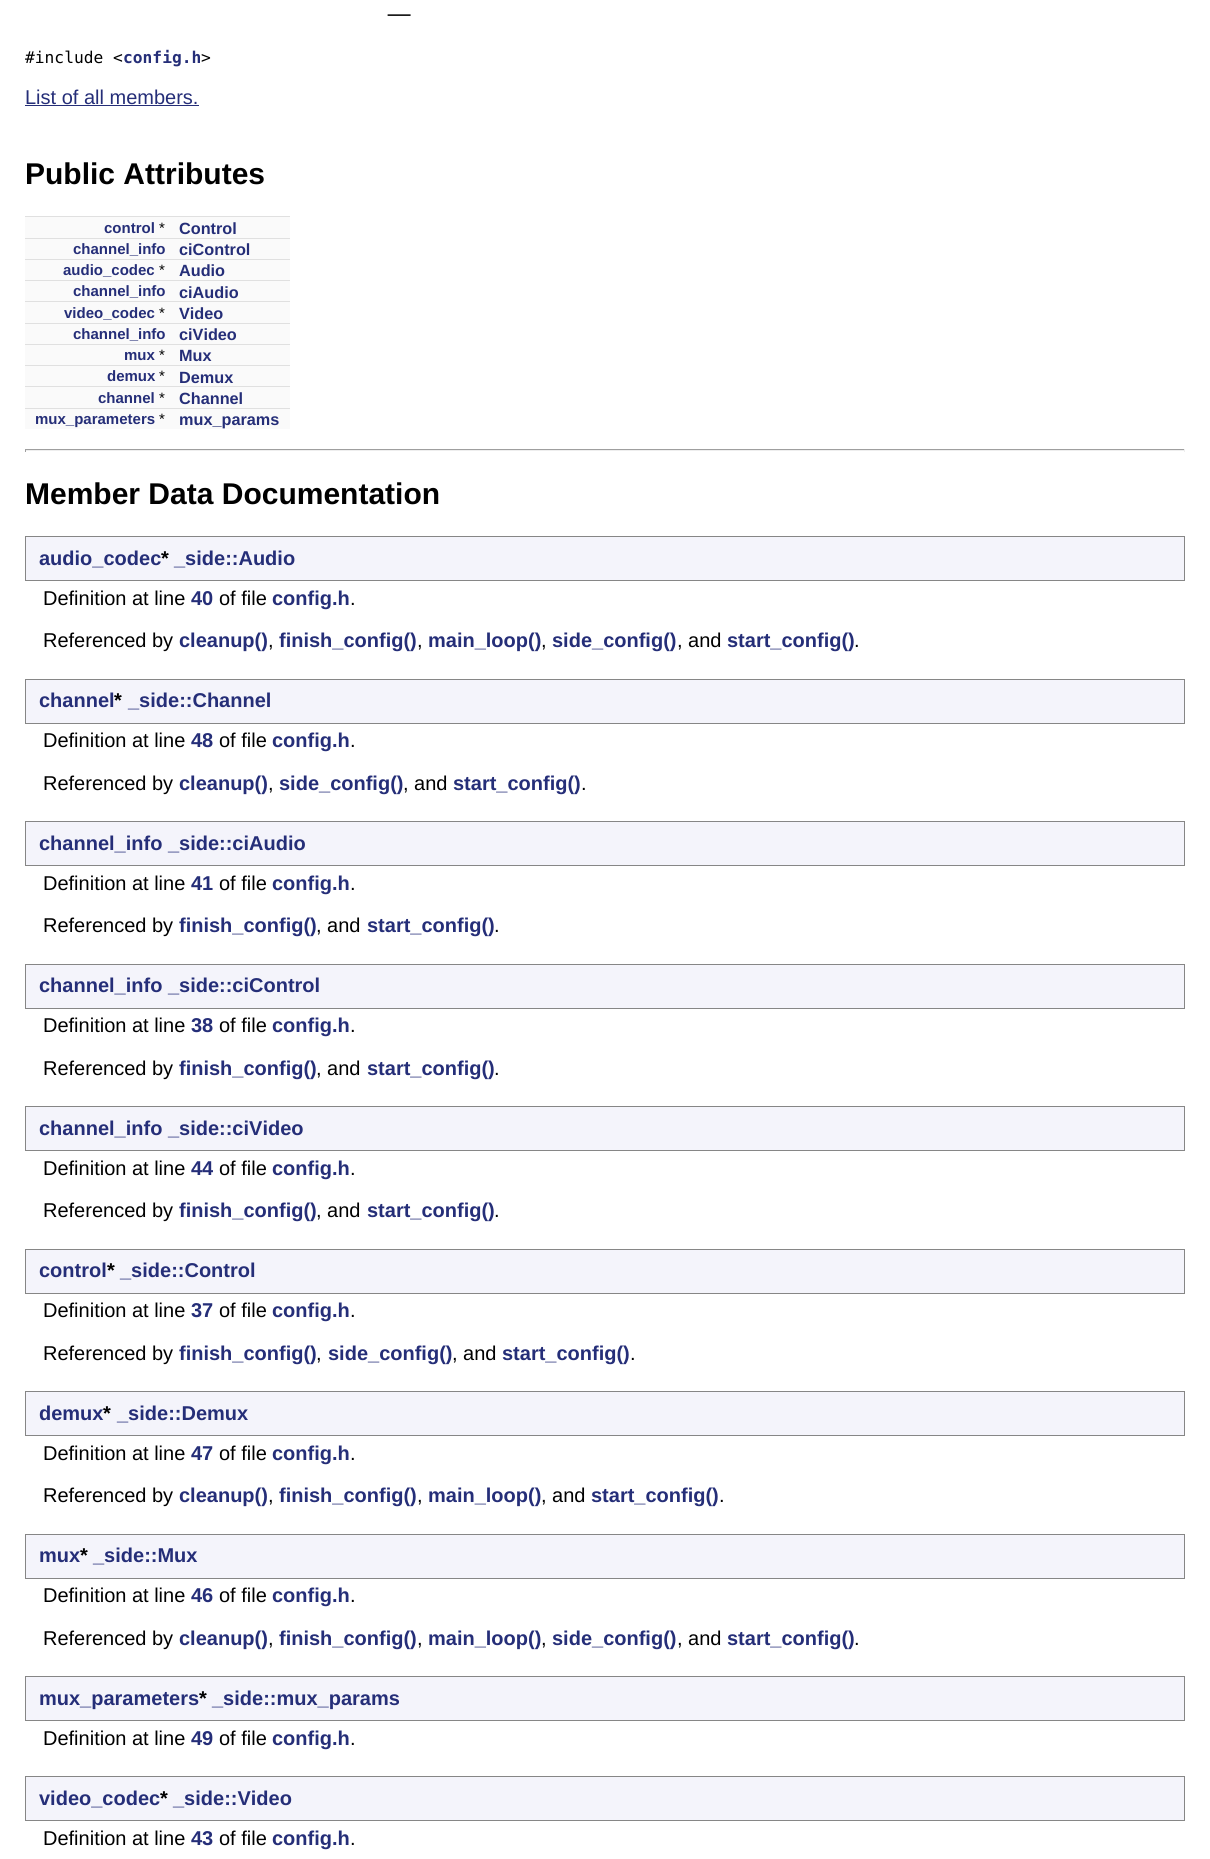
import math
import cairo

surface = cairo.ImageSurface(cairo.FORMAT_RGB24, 1210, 1859)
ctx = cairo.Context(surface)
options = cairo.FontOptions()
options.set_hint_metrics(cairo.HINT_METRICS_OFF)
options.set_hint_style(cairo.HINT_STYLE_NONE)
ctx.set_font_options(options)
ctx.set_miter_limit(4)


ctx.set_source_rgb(1, 1, 1)
ctx.paint()
ctx.select_font_face("Liberation Sans", cairo.FONT_SLANT_NORMAL, cairo.FONT_WEIGHT_BOLD)
ctx.set_font_size(40)
ctx.set_source_rgb(0, 0, 0)
ctx.move_to(388, 11)
ctx.show_text("_")
ctx.select_font_face("DejaVu Sans Mono")
ctx.set_font_size(16.25)
ctx.move_to(25, 63)
ctx.show_text("#include <")
ctx.select_font_face("DejaVu Sans Mono", cairo.FONT_SLANT_NORMAL, cairo.FONT_WEIGHT_BOLD)
ctx.set_source_rgb(0.145, 0.18, 0.471)
ctx.move_to(123, 63)
ctx.show_text("config.h")
ctx.select_font_face("DejaVu Sans Mono")
ctx.set_source_rgb(0, 0, 0)
ctx.move_to(201, 63)
ctx.show_text(">")
ctx.select_font_face("Liberation Sans")
ctx.set_font_size(20)
ctx.set_source_rgb(0.145, 0.18, 0.471)
ctx.move_to(25, 104)
ctx.show_text("List of all members.")
ctx.rectangle(25, 105, 174, 1)
ctx.fill()
ctx.select_font_face("Liberation Sans", cairo.FONT_SLANT_NORMAL, cairo.FONT_WEIGHT_BOLD)
ctx.set_font_size(30)
ctx.set_source_rgb(0, 0, 0)
ctx.move_to(25, 184)
ctx.show_text("Public Attributes")
ctx.set_source_rgb(0.98, 0.98, 0.98)
ctx.rectangle(25, 217, 265, 21)
ctx.fill()
ctx.set_source_rgb(0.878, 0.878, 0.878)
ctx.rectangle(25, 216, 265, 1)
ctx.fill()
ctx.set_font_size(15)
ctx.set_source_rgb(0.145, 0.18, 0.471)
ctx.move_to(104, 233)
ctx.show_text("control")
ctx.select_font_face("Liberation Sans")
ctx.set_source_rgb(0, 0, 0)
ctx.move_to(159, 233)
ctx.show_text("*")
ctx.select_font_face("Liberation Sans", cairo.FONT_SLANT_NORMAL, cairo.FONT_WEIGHT_BOLD)
ctx.set_font_size(16.25)
ctx.set_source_rgb(0.145, 0.18, 0.471)
ctx.move_to(179, 234)
ctx.show_text("Control")
ctx.set_source_rgb(0.98, 0.98, 0.98)
ctx.rectangle(25, 239, 265, 20)
ctx.fill()
ctx.set_source_rgb(0.878, 0.878, 0.878)
ctx.rectangle(25, 238, 265, 1)
ctx.fill()
ctx.set_font_size(15)
ctx.set_source_rgb(0.145, 0.18, 0.471)
ctx.move_to(73, 254)
ctx.show_text("channel_info")
ctx.set_font_size(16.25)
ctx.move_to(179, 255)
ctx.show_text("ciControl")
ctx.set_source_rgb(0.98, 0.98, 0.98)
ctx.rectangle(25, 260, 265, 20)
ctx.fill()
ctx.set_source_rgb(0.878, 0.878, 0.878)
ctx.rectangle(25, 259, 265, 1)
ctx.fill()
ctx.set_font_size(15)
ctx.set_source_rgb(0.145, 0.18, 0.471)
ctx.move_to(63, 275)
ctx.show_text("audio_codec")
ctx.select_font_face("Liberation Sans")
ctx.set_source_rgb(0, 0, 0)
ctx.move_to(159, 275)
ctx.show_text("*")
ctx.select_font_face("Liberation Sans", cairo.FONT_SLANT_NORMAL, cairo.FONT_WEIGHT_BOLD)
ctx.set_font_size(16.25)
ctx.set_source_rgb(0.145, 0.18, 0.471)
ctx.move_to(179, 276)
ctx.show_text("Audio")
ctx.set_source_rgb(0.98, 0.98, 0.98)
ctx.rectangle(25, 281, 265, 20)
ctx.fill()
ctx.set_source_rgb(0.878, 0.878, 0.878)
ctx.rectangle(25, 280, 265, 1)
ctx.fill()
ctx.set_font_size(15)
ctx.set_source_rgb(0.145, 0.18, 0.471)
ctx.move_to(73, 296)
ctx.show_text("channel_info")
ctx.set_font_size(16.25)
ctx.move_to(179, 298)
ctx.show_text("ciAudio")
ctx.set_source_rgb(0.98, 0.98, 0.98)
ctx.rectangle(25, 302, 265, 21)
ctx.fill()
ctx.set_source_rgb(0.878, 0.878, 0.878)
ctx.rectangle(25, 301, 265, 1)
ctx.fill()
ctx.set_font_size(15)
ctx.set_source_rgb(0.145, 0.18, 0.471)
ctx.move_to(64, 318)
ctx.show_text("video_codec")
ctx.select_font_face("Liberation Sans")
ctx.set_source_rgb(0, 0, 0)
ctx.move_to(159, 318)
ctx.show_text("*")
ctx.select_font_face("Liberation Sans", cairo.FONT_SLANT_NORMAL, cairo.FONT_WEIGHT_BOLD)
ctx.set_font_size(16.25)
ctx.set_source_rgb(0.145, 0.18, 0.471)
ctx.move_to(179, 319)
ctx.show_text("Video")
ctx.set_source_rgb(0.98, 0.98, 0.98)
ctx.rectangle(25, 324, 265, 20)
ctx.fill()
ctx.set_source_rgb(0.878, 0.878, 0.878)
ctx.rectangle(25, 323, 265, 1)
ctx.fill()
ctx.set_font_size(15)
ctx.set_source_rgb(0.145, 0.18, 0.471)
ctx.move_to(73, 339)
ctx.show_text("channel_info")
ctx.set_font_size(16.25)
ctx.move_to(179, 340)
ctx.show_text("ciVideo")
ctx.set_source_rgb(0.98, 0.98, 0.98)
ctx.rectangle(25, 345, 265, 20)
ctx.fill()
ctx.set_source_rgb(0.878, 0.878, 0.878)
ctx.rectangle(25, 344, 265, 1)
ctx.fill()
ctx.set_font_size(15)
ctx.set_source_rgb(0.145, 0.18, 0.471)
ctx.move_to(124, 360)
ctx.show_text("mux")
ctx.select_font_face("Liberation Sans")
ctx.set_source_rgb(0, 0, 0)
ctx.move_to(159, 360)
ctx.show_text("*")
ctx.select_font_face("Liberation Sans", cairo.FONT_SLANT_NORMAL, cairo.FONT_WEIGHT_BOLD)
ctx.set_font_size(16.25)
ctx.set_source_rgb(0.145, 0.18, 0.471)
ctx.move_to(179, 361)
ctx.show_text("Mux")
ctx.set_source_rgb(0.98, 0.98, 0.98)
ctx.rectangle(25, 366, 265, 20)
ctx.fill()
ctx.set_source_rgb(0.878, 0.878, 0.878)
ctx.rectangle(25, 365, 265, 1)
ctx.fill()
ctx.set_font_size(15)
ctx.set_source_rgb(0.145, 0.18, 0.471)
ctx.move_to(107, 381)
ctx.show_text("demux")
ctx.select_font_face("Liberation Sans")
ctx.set_source_rgb(0, 0, 0)
ctx.move_to(159, 381)
ctx.show_text("*")
ctx.select_font_face("Liberation Sans", cairo.FONT_SLANT_NORMAL, cairo.FONT_WEIGHT_BOLD)
ctx.set_font_size(16.25)
ctx.set_source_rgb(0.145, 0.18, 0.471)
ctx.move_to(179, 383)
ctx.show_text("Demux")
ctx.set_source_rgb(0.98, 0.98, 0.98)
ctx.rectangle(25, 387, 265, 21)
ctx.fill()
ctx.set_source_rgb(0.878, 0.878, 0.878)
ctx.rectangle(25, 386, 265, 1)
ctx.fill()
ctx.set_font_size(15)
ctx.set_source_rgb(0.145, 0.18, 0.471)
ctx.move_to(98, 403)
ctx.show_text("channel")
ctx.select_font_face("Liberation Sans")
ctx.set_source_rgb(0, 0, 0)
ctx.move_to(159, 403)
ctx.show_text("*")
ctx.select_font_face("Liberation Sans", cairo.FONT_SLANT_NORMAL, cairo.FONT_WEIGHT_BOLD)
ctx.set_font_size(16.25)
ctx.set_source_rgb(0.145, 0.18, 0.471)
ctx.move_to(179, 404)
ctx.show_text("Channel")
ctx.set_source_rgb(0.98, 0.98, 0.98)
ctx.rectangle(25, 409, 265, 20)
ctx.fill()
ctx.set_source_rgb(0.878, 0.878, 0.878)
ctx.rectangle(25, 408, 265, 1)
ctx.fill()
ctx.set_font_size(15)
ctx.set_source_rgb(0.145, 0.18, 0.471)
ctx.move_to(35, 424)
ctx.show_text("mux_parameters")
ctx.select_font_face("Liberation Sans")
ctx.set_source_rgb(0, 0, 0)
ctx.move_to(159, 424)
ctx.show_text("*")
ctx.select_font_face("Liberation Sans", cairo.FONT_SLANT_NORMAL, cairo.FONT_WEIGHT_BOLD)
ctx.set_font_size(16.25)
ctx.set_source_rgb(0.145, 0.18, 0.471)
ctx.move_to(179, 425)
ctx.show_text("mux_params")
ctx.set_source_rgb(0.624, 0.624, 0.624)
ctx.rectangle(25, 449, 1160, 1)
ctx.fill()
ctx.set_source_rgb(0.933, 0.933, 0.933)
ctx.rectangle(1184, 449, 1, 3)
ctx.fill()
ctx.rectangle(25, 450, 1160, 1)
ctx.fill()
ctx.set_source_rgb(0.624, 0.624, 0.624)
ctx.rectangle(25, 449, 1, 3)
ctx.fill()
ctx.set_font_size(30)
ctx.set_source_rgb(0, 0, 0)
ctx.move_to(25, 504)
ctx.show_text("Member Data Documentation")
ctx.set_source_rgb(0.957, 0.957, 0.984)
ctx.rectangle(25.5, 536.5, 1159, 44)
ctx.fill_preserve()
ctx.set_source_rgb(0.525, 0.525, 0.525)
ctx.set_line_width(1)
ctx.stroke()
ctx.set_font_size(20)
ctx.set_source_rgb(0.145, 0.18, 0.471)
ctx.move_to(39, 565)
ctx.show_text("audio_codec")
ctx.set_source_rgb(0, 0, 0)
ctx.move_to(161, 565)
ctx.show_text("*")
ctx.set_source_rgb(0.145, 0.18, 0.471)
ctx.move_to(174, 565)
ctx.show_text("_side::Audio")
ctx.select_font_face("Liberation Sans")
ctx.set_source_rgb(0, 0, 0)
ctx.move_to(43, 605)
ctx.show_text("Definition at line")
ctx.select_font_face("Liberation Sans", cairo.FONT_SLANT_NORMAL, cairo.FONT_WEIGHT_BOLD)
ctx.set_source_rgb(0.145, 0.18, 0.471)
ctx.move_to(191, 605)
ctx.show_text("40")
ctx.select_font_face("Liberation Sans")
ctx.set_source_rgb(0, 0, 0)
ctx.move_to(219, 605)
ctx.show_text("of file")
ctx.select_font_face("Liberation Sans", cairo.FONT_SLANT_NORMAL, cairo.FONT_WEIGHT_BOLD)
ctx.set_source_rgb(0.145, 0.18, 0.471)
ctx.move_to(272, 605)
ctx.show_text("config.h")
ctx.select_font_face("Liberation Sans")
ctx.set_source_rgb(0, 0, 0)
ctx.move_to(350, 605)
ctx.show_text(".")
ctx.move_to(43, 647)
ctx.show_text("Referenced by")
ctx.select_font_face("Liberation Sans", cairo.FONT_SLANT_NORMAL, cairo.FONT_WEIGHT_BOLD)
ctx.set_source_rgb(0.145, 0.18, 0.471)
ctx.move_to(179, 647)
ctx.show_text("cleanup()")
ctx.select_font_face("Liberation Sans")
ctx.set_source_rgb(0, 0, 0)
ctx.move_to(268, 647)
ctx.show_text(",")
ctx.select_font_face("Liberation Sans", cairo.FONT_SLANT_NORMAL, cairo.FONT_WEIGHT_BOLD)
ctx.set_source_rgb(0.145, 0.18, 0.471)
ctx.move_to(279, 647)
ctx.show_text("finish_config()")
ctx.select_font_face("Liberation Sans")
ctx.set_source_rgb(0, 0, 0)
ctx.move_to(417, 647)
ctx.show_text(",")
ctx.select_font_face("Liberation Sans", cairo.FONT_SLANT_NORMAL, cairo.FONT_WEIGHT_BOLD)
ctx.set_source_rgb(0.145, 0.18, 0.471)
ctx.move_to(428, 647)
ctx.show_text("main_loop()")
ctx.select_font_face("Liberation Sans")
ctx.set_source_rgb(0, 0, 0)
ctx.move_to(541, 647)
ctx.show_text(",")
ctx.select_font_face("Liberation Sans", cairo.FONT_SLANT_NORMAL, cairo.FONT_WEIGHT_BOLD)
ctx.set_source_rgb(0.145, 0.18, 0.471)
ctx.move_to(552, 647)
ctx.show_text("side_config()")
ctx.select_font_face("Liberation Sans")
ctx.set_source_rgb(0, 0, 0)
ctx.move_to(677, 647)
ctx.show_text(", and")
ctx.select_font_face("Liberation Sans", cairo.FONT_SLANT_NORMAL, cairo.FONT_WEIGHT_BOLD)
ctx.set_source_rgb(0.145, 0.18, 0.471)
ctx.move_to(727, 647)
ctx.show_text("start_config()")
ctx.select_font_face("Liberation Sans")
ctx.set_source_rgb(0, 0, 0)
ctx.move_to(854, 647)
ctx.show_text(".")
ctx.set_source_rgb(0.957, 0.957, 0.984)
ctx.rectangle(25.5, 679.5, 1159, 44)
ctx.fill_preserve()
ctx.set_source_rgb(0.525, 0.525, 0.525)
ctx.stroke()
ctx.select_font_face("Liberation Sans", cairo.FONT_SLANT_NORMAL, cairo.FONT_WEIGHT_BOLD)
ctx.set_source_rgb(0.145, 0.18, 0.471)
ctx.move_to(39, 707)
ctx.show_text("channel")
ctx.set_source_rgb(0, 0, 0)
ctx.move_to(114, 707)
ctx.show_text("*")
ctx.set_source_rgb(0.145, 0.18, 0.471)
ctx.move_to(128, 707)
ctx.show_text("_side::Channel")
ctx.select_font_face("Liberation Sans")
ctx.set_source_rgb(0, 0, 0)
ctx.move_to(43, 747)
ctx.show_text("Definition at line")
ctx.select_font_face("Liberation Sans", cairo.FONT_SLANT_NORMAL, cairo.FONT_WEIGHT_BOLD)
ctx.set_source_rgb(0.145, 0.18, 0.471)
ctx.move_to(191, 747)
ctx.show_text("48")
ctx.select_font_face("Liberation Sans")
ctx.set_source_rgb(0, 0, 0)
ctx.move_to(219, 747)
ctx.show_text("of file")
ctx.select_font_face("Liberation Sans", cairo.FONT_SLANT_NORMAL, cairo.FONT_WEIGHT_BOLD)
ctx.set_source_rgb(0.145, 0.18, 0.471)
ctx.move_to(272, 747)
ctx.show_text("config.h")
ctx.select_font_face("Liberation Sans")
ctx.set_source_rgb(0, 0, 0)
ctx.move_to(350, 747)
ctx.show_text(".")
ctx.move_to(43, 790)
ctx.show_text("Referenced by")
ctx.select_font_face("Liberation Sans", cairo.FONT_SLANT_NORMAL, cairo.FONT_WEIGHT_BOLD)
ctx.set_source_rgb(0.145, 0.18, 0.471)
ctx.move_to(179, 790)
ctx.show_text("cleanup()")
ctx.select_font_face("Liberation Sans")
ctx.set_source_rgb(0, 0, 0)
ctx.move_to(268, 790)
ctx.show_text(",")
ctx.select_font_face("Liberation Sans", cairo.FONT_SLANT_NORMAL, cairo.FONT_WEIGHT_BOLD)
ctx.set_source_rgb(0.145, 0.18, 0.471)
ctx.move_to(279, 790)
ctx.show_text("side_config()")
ctx.select_font_face("Liberation Sans")
ctx.set_source_rgb(0, 0, 0)
ctx.move_to(403, 790)
ctx.show_text(", and")
ctx.select_font_face("Liberation Sans", cairo.FONT_SLANT_NORMAL, cairo.FONT_WEIGHT_BOLD)
ctx.set_source_rgb(0.145, 0.18, 0.471)
ctx.move_to(453, 790)
ctx.show_text("start_config()")
ctx.select_font_face("Liberation Sans")
ctx.set_source_rgb(0, 0, 0)
ctx.move_to(581, 790)
ctx.show_text(".")
ctx.set_source_rgb(0.957, 0.957, 0.984)
ctx.rectangle(25.5, 821.5, 1159, 44)
ctx.fill_preserve()
ctx.set_source_rgb(0.525, 0.525, 0.525)
ctx.stroke()
ctx.select_font_face("Liberation Sans", cairo.FONT_SLANT_NORMAL, cairo.FONT_WEIGHT_BOLD)
ctx.set_source_rgb(0.145, 0.18, 0.471)
ctx.move_to(39, 850)
ctx.show_text("channel_info _side::ciAudio")
ctx.select_font_face("Liberation Sans")
ctx.set_source_rgb(0, 0, 0)
ctx.move_to(43, 890)
ctx.show_text("Definition at line")
ctx.select_font_face("Liberation Sans", cairo.FONT_SLANT_NORMAL, cairo.FONT_WEIGHT_BOLD)
ctx.set_source_rgb(0.145, 0.18, 0.471)
ctx.move_to(191, 890)
ctx.show_text("41")
ctx.select_font_face("Liberation Sans")
ctx.set_source_rgb(0, 0, 0)
ctx.move_to(219, 890)
ctx.show_text("of file")
ctx.select_font_face("Liberation Sans", cairo.FONT_SLANT_NORMAL, cairo.FONT_WEIGHT_BOLD)
ctx.set_source_rgb(0.145, 0.18, 0.471)
ctx.move_to(272, 890)
ctx.show_text("config.h")
ctx.select_font_face("Liberation Sans")
ctx.set_source_rgb(0, 0, 0)
ctx.move_to(350, 890)
ctx.show_text(".")
ctx.move_to(43, 932)
ctx.show_text("Referenced by")
ctx.select_font_face("Liberation Sans", cairo.FONT_SLANT_NORMAL, cairo.FONT_WEIGHT_BOLD)
ctx.set_source_rgb(0.145, 0.18, 0.471)
ctx.move_to(179, 932)
ctx.show_text("finish_config()")
ctx.select_font_face("Liberation Sans")
ctx.set_source_rgb(0, 0, 0)
ctx.move_to(316, 932)
ctx.show_text(", and")
ctx.select_font_face("Liberation Sans", cairo.FONT_SLANT_NORMAL, cairo.FONT_WEIGHT_BOLD)
ctx.set_source_rgb(0.145, 0.18, 0.471)
ctx.move_to(367, 932)
ctx.show_text("start_config()")
ctx.select_font_face("Liberation Sans")
ctx.set_source_rgb(0, 0, 0)
ctx.move_to(494, 932)
ctx.show_text(".")
ctx.set_source_rgb(0.957, 0.957, 0.984)
ctx.rectangle(25.5, 964.5, 1159, 44)
ctx.fill_preserve()
ctx.set_source_rgb(0.525, 0.525, 0.525)
ctx.stroke()
ctx.select_font_face("Liberation Sans", cairo.FONT_SLANT_NORMAL, cairo.FONT_WEIGHT_BOLD)
ctx.set_source_rgb(0.145, 0.18, 0.471)
ctx.move_to(39, 992)
ctx.show_text("channel_info _side::ciControl")
ctx.select_font_face("Liberation Sans")
ctx.set_source_rgb(0, 0, 0)
ctx.move_to(43, 1032)
ctx.show_text("Definition at line")
ctx.select_font_face("Liberation Sans", cairo.FONT_SLANT_NORMAL, cairo.FONT_WEIGHT_BOLD)
ctx.set_source_rgb(0.145, 0.18, 0.471)
ctx.move_to(191, 1032)
ctx.show_text("38")
ctx.select_font_face("Liberation Sans")
ctx.set_source_rgb(0, 0, 0)
ctx.move_to(219, 1032)
ctx.show_text("of file")
ctx.select_font_face("Liberation Sans", cairo.FONT_SLANT_NORMAL, cairo.FONT_WEIGHT_BOLD)
ctx.set_source_rgb(0.145, 0.18, 0.471)
ctx.move_to(272, 1032)
ctx.show_text("config.h")
ctx.select_font_face("Liberation Sans")
ctx.set_source_rgb(0, 0, 0)
ctx.move_to(350, 1032)
ctx.show_text(".")
ctx.move_to(43, 1075)
ctx.show_text("Referenced by")
ctx.select_font_face("Liberation Sans", cairo.FONT_SLANT_NORMAL, cairo.FONT_WEIGHT_BOLD)
ctx.set_source_rgb(0.145, 0.18, 0.471)
ctx.move_to(179, 1075)
ctx.show_text("finish_config()")
ctx.select_font_face("Liberation Sans")
ctx.set_source_rgb(0, 0, 0)
ctx.move_to(316, 1075)
ctx.show_text(", and")
ctx.select_font_face("Liberation Sans", cairo.FONT_SLANT_NORMAL, cairo.FONT_WEIGHT_BOLD)
ctx.set_source_rgb(0.145, 0.18, 0.471)
ctx.move_to(367, 1075)
ctx.show_text("start_config()")
ctx.select_font_face("Liberation Sans")
ctx.set_source_rgb(0, 0, 0)
ctx.move_to(494, 1075)
ctx.show_text(".")
ctx.set_source_rgb(0.957, 0.957, 0.984)
ctx.rectangle(25.5, 1106.5, 1159, 44)
ctx.fill_preserve()
ctx.set_source_rgb(0.525, 0.525, 0.525)
ctx.stroke()
ctx.select_font_face("Liberation Sans", cairo.FONT_SLANT_NORMAL, cairo.FONT_WEIGHT_BOLD)
ctx.set_source_rgb(0.145, 0.18, 0.471)
ctx.move_to(39, 1135)
ctx.show_text("channel_info _side::ciVideo")
ctx.select_font_face("Liberation Sans")
ctx.set_source_rgb(0, 0, 0)
ctx.move_to(43, 1175)
ctx.show_text("Definition at line")
ctx.select_font_face("Liberation Sans", cairo.FONT_SLANT_NORMAL, cairo.FONT_WEIGHT_BOLD)
ctx.set_source_rgb(0.145, 0.18, 0.471)
ctx.move_to(191, 1175)
ctx.show_text("44")
ctx.select_font_face("Liberation Sans")
ctx.set_source_rgb(0, 0, 0)
ctx.move_to(219, 1175)
ctx.show_text("of file")
ctx.select_font_face("Liberation Sans", cairo.FONT_SLANT_NORMAL, cairo.FONT_WEIGHT_BOLD)
ctx.set_source_rgb(0.145, 0.18, 0.471)
ctx.move_to(272, 1175)
ctx.show_text("config.h")
ctx.select_font_face("Liberation Sans")
ctx.set_source_rgb(0, 0, 0)
ctx.move_to(350, 1175)
ctx.show_text(".")
ctx.move_to(43, 1217)
ctx.show_text("Referenced by")
ctx.select_font_face("Liberation Sans", cairo.FONT_SLANT_NORMAL, cairo.FONT_WEIGHT_BOLD)
ctx.set_source_rgb(0.145, 0.18, 0.471)
ctx.move_to(179, 1217)
ctx.show_text("finish_config()")
ctx.select_font_face("Liberation Sans")
ctx.set_source_rgb(0, 0, 0)
ctx.move_to(316, 1217)
ctx.show_text(", and")
ctx.select_font_face("Liberation Sans", cairo.FONT_SLANT_NORMAL, cairo.FONT_WEIGHT_BOLD)
ctx.set_source_rgb(0.145, 0.18, 0.471)
ctx.move_to(367, 1217)
ctx.show_text("start_config()")
ctx.select_font_face("Liberation Sans")
ctx.set_source_rgb(0, 0, 0)
ctx.move_to(494, 1217)
ctx.show_text(".")
ctx.set_source_rgb(0.957, 0.957, 0.984)
ctx.rectangle(25.5, 1249.5, 1159, 44)
ctx.fill_preserve()
ctx.set_source_rgb(0.525, 0.525, 0.525)
ctx.stroke()
ctx.select_font_face("Liberation Sans", cairo.FONT_SLANT_NORMAL, cairo.FONT_WEIGHT_BOLD)
ctx.set_source_rgb(0.145, 0.18, 0.471)
ctx.move_to(39, 1277)
ctx.show_text("control")
ctx.set_source_rgb(0, 0, 0)
ctx.move_to(107, 1277)
ctx.show_text("*")
ctx.set_source_rgb(0.145, 0.18, 0.471)
ctx.move_to(120, 1277)
ctx.show_text("_side::Control")
ctx.select_font_face("Liberation Sans")
ctx.set_source_rgb(0, 0, 0)
ctx.move_to(43, 1317)
ctx.show_text("Definition at line")
ctx.select_font_face("Liberation Sans", cairo.FONT_SLANT_NORMAL, cairo.FONT_WEIGHT_BOLD)
ctx.set_source_rgb(0.145, 0.18, 0.471)
ctx.move_to(191, 1317)
ctx.show_text("37")
ctx.select_font_face("Liberation Sans")
ctx.set_source_rgb(0, 0, 0)
ctx.move_to(219, 1317)
ctx.show_text("of file")
ctx.select_font_face("Liberation Sans", cairo.FONT_SLANT_NORMAL, cairo.FONT_WEIGHT_BOLD)
ctx.set_source_rgb(0.145, 0.18, 0.471)
ctx.move_to(272, 1317)
ctx.show_text("config.h")
ctx.select_font_face("Liberation Sans")
ctx.set_source_rgb(0, 0, 0)
ctx.move_to(350, 1317)
ctx.show_text(".")
ctx.move_to(43, 1360)
ctx.show_text("Referenced by")
ctx.select_font_face("Liberation Sans", cairo.FONT_SLANT_NORMAL, cairo.FONT_WEIGHT_BOLD)
ctx.set_source_rgb(0.145, 0.18, 0.471)
ctx.move_to(179, 1360)
ctx.show_text("finish_config()")
ctx.select_font_face("Liberation Sans")
ctx.set_source_rgb(0, 0, 0)
ctx.move_to(316, 1360)
ctx.show_text(",")
ctx.select_font_face("Liberation Sans", cairo.FONT_SLANT_NORMAL, cairo.FONT_WEIGHT_BOLD)
ctx.set_source_rgb(0.145, 0.18, 0.471)
ctx.move_to(328, 1360)
ctx.show_text("side_config()")
ctx.select_font_face("Liberation Sans")
ctx.set_source_rgb(0, 0, 0)
ctx.move_to(452, 1360)
ctx.show_text(", and")
ctx.select_font_face("Liberation Sans", cairo.FONT_SLANT_NORMAL, cairo.FONT_WEIGHT_BOLD)
ctx.set_source_rgb(0.145, 0.18, 0.471)
ctx.move_to(502, 1360)
ctx.show_text("start_config()")
ctx.select_font_face("Liberation Sans")
ctx.set_source_rgb(0, 0, 0)
ctx.move_to(630, 1360)
ctx.show_text(".")
ctx.set_source_rgb(0.957, 0.957, 0.984)
ctx.rectangle(25.5, 1391.5, 1159, 44)
ctx.fill_preserve()
ctx.set_source_rgb(0.525, 0.525, 0.525)
ctx.stroke()
ctx.select_font_face("Liberation Sans", cairo.FONT_SLANT_NORMAL, cairo.FONT_WEIGHT_BOLD)
ctx.set_source_rgb(0.145, 0.18, 0.471)
ctx.move_to(39, 1420)
ctx.show_text("demux")
ctx.set_source_rgb(0, 0, 0)
ctx.move_to(103, 1420)
ctx.show_text("*")
ctx.set_source_rgb(0.145, 0.18, 0.471)
ctx.move_to(117, 1420)
ctx.show_text("_side::Demux")
ctx.select_font_face("Liberation Sans")
ctx.set_source_rgb(0, 0, 0)
ctx.move_to(43, 1460)
ctx.show_text("Definition at line")
ctx.select_font_face("Liberation Sans", cairo.FONT_SLANT_NORMAL, cairo.FONT_WEIGHT_BOLD)
ctx.set_source_rgb(0.145, 0.18, 0.471)
ctx.move_to(191, 1460)
ctx.show_text("47")
ctx.select_font_face("Liberation Sans")
ctx.set_source_rgb(0, 0, 0)
ctx.move_to(219, 1460)
ctx.show_text("of file")
ctx.select_font_face("Liberation Sans", cairo.FONT_SLANT_NORMAL, cairo.FONT_WEIGHT_BOLD)
ctx.set_source_rgb(0.145, 0.18, 0.471)
ctx.move_to(272, 1460)
ctx.show_text("config.h")
ctx.select_font_face("Liberation Sans")
ctx.set_source_rgb(0, 0, 0)
ctx.move_to(350, 1460)
ctx.show_text(".")
ctx.move_to(43, 1502)
ctx.show_text("Referenced by")
ctx.select_font_face("Liberation Sans", cairo.FONT_SLANT_NORMAL, cairo.FONT_WEIGHT_BOLD)
ctx.set_source_rgb(0.145, 0.18, 0.471)
ctx.move_to(179, 1502)
ctx.show_text("cleanup()")
ctx.select_font_face("Liberation Sans")
ctx.set_source_rgb(0, 0, 0)
ctx.move_to(268, 1502)
ctx.show_text(",")
ctx.select_font_face("Liberation Sans", cairo.FONT_SLANT_NORMAL, cairo.FONT_WEIGHT_BOLD)
ctx.set_source_rgb(0.145, 0.18, 0.471)
ctx.move_to(279, 1502)
ctx.show_text("finish_config()")
ctx.select_font_face("Liberation Sans")
ctx.set_source_rgb(0, 0, 0)
ctx.move_to(417, 1502)
ctx.show_text(",")
ctx.select_font_face("Liberation Sans", cairo.FONT_SLANT_NORMAL, cairo.FONT_WEIGHT_BOLD)
ctx.set_source_rgb(0.145, 0.18, 0.471)
ctx.move_to(428, 1502)
ctx.show_text("main_loop()")
ctx.select_font_face("Liberation Sans")
ctx.set_source_rgb(0, 0, 0)
ctx.move_to(541, 1502)
ctx.show_text(", and")
ctx.select_font_face("Liberation Sans", cairo.FONT_SLANT_NORMAL, cairo.FONT_WEIGHT_BOLD)
ctx.set_source_rgb(0.145, 0.18, 0.471)
ctx.move_to(591, 1502)
ctx.show_text("start_config()")
ctx.select_font_face("Liberation Sans")
ctx.set_source_rgb(0, 0, 0)
ctx.move_to(719, 1502)
ctx.show_text(".")
ctx.set_source_rgb(0.957, 0.957, 0.984)
ctx.rectangle(25.5, 1534.5, 1159, 44)
ctx.fill_preserve()
ctx.set_source_rgb(0.525, 0.525, 0.525)
ctx.stroke()
ctx.select_font_face("Liberation Sans", cairo.FONT_SLANT_NORMAL, cairo.FONT_WEIGHT_BOLD)
ctx.set_source_rgb(0.145, 0.18, 0.471)
ctx.move_to(39, 1562)
ctx.show_text("mux")
ctx.set_source_rgb(0, 0, 0)
ctx.move_to(80, 1562)
ctx.show_text("*")
ctx.set_source_rgb(0.145, 0.18, 0.471)
ctx.move_to(93, 1562)
ctx.show_text("_side::Mux")
ctx.select_font_face("Liberation Sans")
ctx.set_source_rgb(0, 0, 0)
ctx.move_to(43, 1602)
ctx.show_text("Definition at line")
ctx.select_font_face("Liberation Sans", cairo.FONT_SLANT_NORMAL, cairo.FONT_WEIGHT_BOLD)
ctx.set_source_rgb(0.145, 0.18, 0.471)
ctx.move_to(191, 1602)
ctx.show_text("46")
ctx.select_font_face("Liberation Sans")
ctx.set_source_rgb(0, 0, 0)
ctx.move_to(219, 1602)
ctx.show_text("of file")
ctx.select_font_face("Liberation Sans", cairo.FONT_SLANT_NORMAL, cairo.FONT_WEIGHT_BOLD)
ctx.set_source_rgb(0.145, 0.18, 0.471)
ctx.move_to(272, 1602)
ctx.show_text("config.h")
ctx.select_font_face("Liberation Sans")
ctx.set_source_rgb(0, 0, 0)
ctx.move_to(350, 1602)
ctx.show_text(".")
ctx.move_to(43, 1645)
ctx.show_text("Referenced by")
ctx.select_font_face("Liberation Sans", cairo.FONT_SLANT_NORMAL, cairo.FONT_WEIGHT_BOLD)
ctx.set_source_rgb(0.145, 0.18, 0.471)
ctx.move_to(179, 1645)
ctx.show_text("cleanup()")
ctx.select_font_face("Liberation Sans")
ctx.set_source_rgb(0, 0, 0)
ctx.move_to(268, 1645)
ctx.show_text(",")
ctx.select_font_face("Liberation Sans", cairo.FONT_SLANT_NORMAL, cairo.FONT_WEIGHT_BOLD)
ctx.set_source_rgb(0.145, 0.18, 0.471)
ctx.move_to(279, 1645)
ctx.show_text("finish_config()")
ctx.select_font_face("Liberation Sans")
ctx.set_source_rgb(0, 0, 0)
ctx.move_to(417, 1645)
ctx.show_text(",")
ctx.select_font_face("Liberation Sans", cairo.FONT_SLANT_NORMAL, cairo.FONT_WEIGHT_BOLD)
ctx.set_source_rgb(0.145, 0.18, 0.471)
ctx.move_to(428, 1645)
ctx.show_text("main_loop()")
ctx.select_font_face("Liberation Sans")
ctx.set_source_rgb(0, 0, 0)
ctx.move_to(541, 1645)
ctx.show_text(",")
ctx.select_font_face("Liberation Sans", cairo.FONT_SLANT_NORMAL, cairo.FONT_WEIGHT_BOLD)
ctx.set_source_rgb(0.145, 0.18, 0.471)
ctx.move_to(552, 1645)
ctx.show_text("side_config()")
ctx.select_font_face("Liberation Sans")
ctx.set_source_rgb(0, 0, 0)
ctx.move_to(677, 1645)
ctx.show_text(", and")
ctx.select_font_face("Liberation Sans", cairo.FONT_SLANT_NORMAL, cairo.FONT_WEIGHT_BOLD)
ctx.set_source_rgb(0.145, 0.18, 0.471)
ctx.move_to(727, 1645)
ctx.show_text("start_config()")
ctx.select_font_face("Liberation Sans")
ctx.set_source_rgb(0, 0, 0)
ctx.move_to(854, 1645)
ctx.show_text(".")
ctx.set_source_rgb(0.957, 0.957, 0.984)
ctx.rectangle(25.5, 1676.5, 1159, 44)
ctx.fill_preserve()
ctx.set_source_rgb(0.525, 0.525, 0.525)
ctx.stroke()
ctx.select_font_face("Liberation Sans", cairo.FONT_SLANT_NORMAL, cairo.FONT_WEIGHT_BOLD)
ctx.set_source_rgb(0.145, 0.18, 0.471)
ctx.move_to(39, 1705)
ctx.show_text("mux_parameters")
ctx.set_source_rgb(0, 0, 0)
ctx.move_to(199, 1705)
ctx.show_text("*")
ctx.set_source_rgb(0.145, 0.18, 0.471)
ctx.move_to(212, 1705)
ctx.show_text("_side::mux_params")
ctx.select_font_face("Liberation Sans")
ctx.set_source_rgb(0, 0, 0)
ctx.move_to(43, 1745)
ctx.show_text("Definition at line")
ctx.select_font_face("Liberation Sans", cairo.FONT_SLANT_NORMAL, cairo.FONT_WEIGHT_BOLD)
ctx.set_source_rgb(0.145, 0.18, 0.471)
ctx.move_to(191, 1745)
ctx.show_text("49")
ctx.select_font_face("Liberation Sans")
ctx.set_source_rgb(0, 0, 0)
ctx.move_to(219, 1745)
ctx.show_text("of file")
ctx.select_font_face("Liberation Sans", cairo.FONT_SLANT_NORMAL, cairo.FONT_WEIGHT_BOLD)
ctx.set_source_rgb(0.145, 0.18, 0.471)
ctx.move_to(272, 1745)
ctx.show_text("config.h")
ctx.select_font_face("Liberation Sans")
ctx.set_source_rgb(0, 0, 0)
ctx.move_to(350, 1745)
ctx.show_text(".")
ctx.set_source_rgb(0.957, 0.957, 0.984)
ctx.rectangle(25.5, 1776.5, 1159, 44)
ctx.fill_preserve()
ctx.set_source_rgb(0.525, 0.525, 0.525)
ctx.stroke()
ctx.select_font_face("Liberation Sans", cairo.FONT_SLANT_NORMAL, cairo.FONT_WEIGHT_BOLD)
ctx.set_source_rgb(0.145, 0.18, 0.471)
ctx.move_to(39, 1805)
ctx.show_text("video_codec")
ctx.set_source_rgb(0, 0, 0)
ctx.move_to(160, 1805)
ctx.show_text("*")
ctx.set_source_rgb(0.145, 0.18, 0.471)
ctx.move_to(173, 1805)
ctx.show_text("_side::Video")
ctx.select_font_face("Liberation Sans")
ctx.set_source_rgb(0, 0, 0)
ctx.move_to(43, 1845)
ctx.show_text("Definition at line")
ctx.select_font_face("Liberation Sans", cairo.FONT_SLANT_NORMAL, cairo.FONT_WEIGHT_BOLD)
ctx.set_source_rgb(0.145, 0.18, 0.471)
ctx.move_to(191, 1845)
ctx.show_text("43")
ctx.select_font_face("Liberation Sans")
ctx.set_source_rgb(0, 0, 0)
ctx.move_to(219, 1845)
ctx.show_text("of file")
ctx.select_font_face("Liberation Sans", cairo.FONT_SLANT_NORMAL, cairo.FONT_WEIGHT_BOLD)
ctx.set_source_rgb(0.145, 0.18, 0.471)
ctx.move_to(272, 1845)
ctx.show_text("config.h")
ctx.select_font_face("Liberation Sans")
ctx.set_source_rgb(0, 0, 0)
ctx.move_to(350, 1845)
ctx.show_text(".")
surface.write_to_png("page.png")
